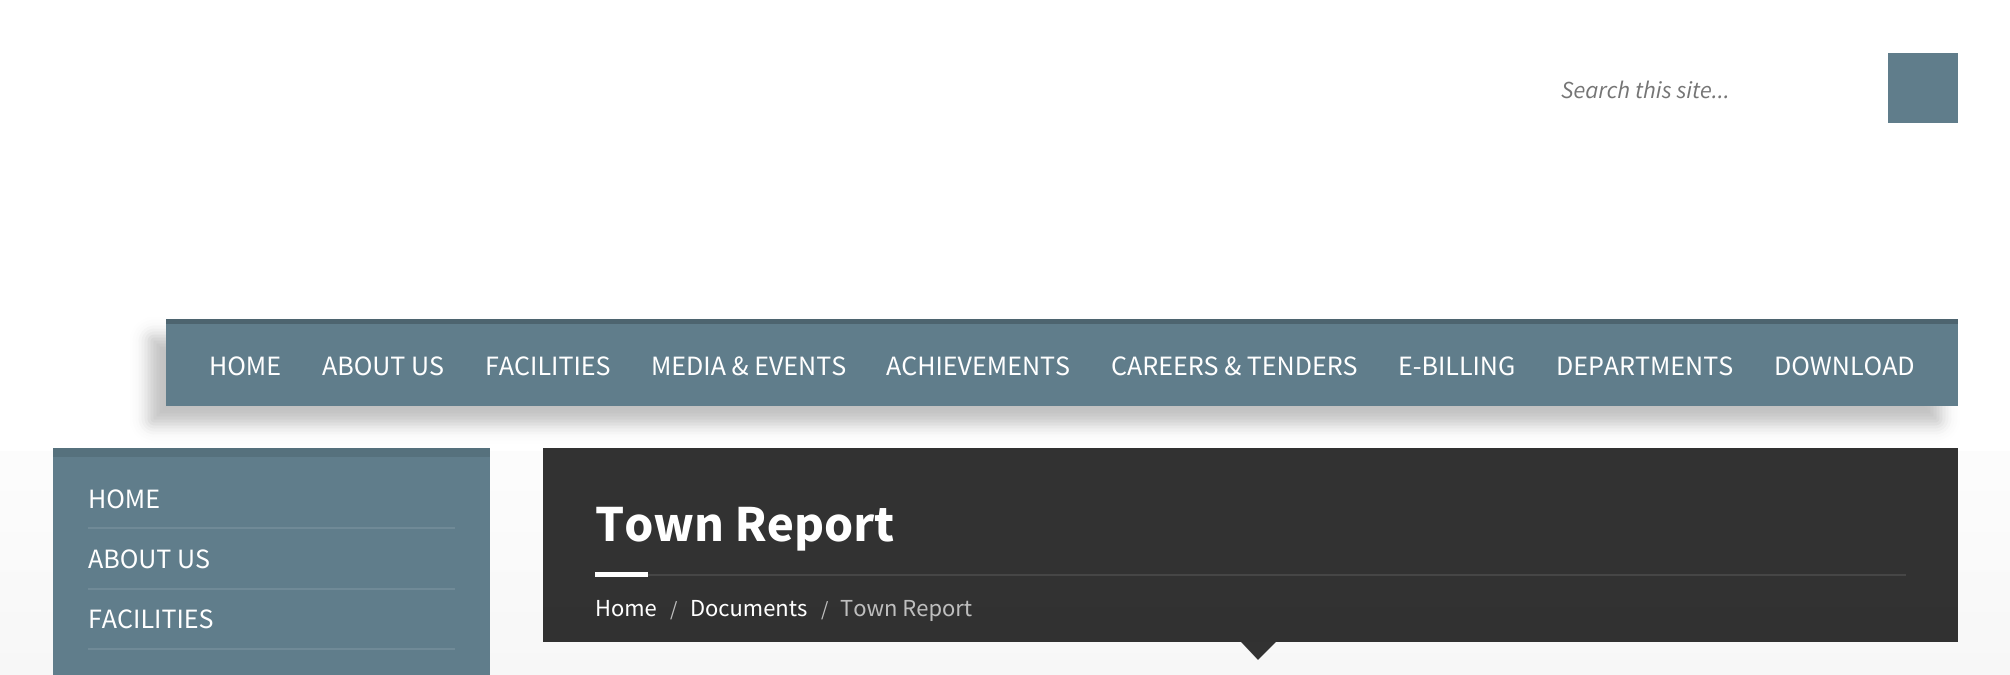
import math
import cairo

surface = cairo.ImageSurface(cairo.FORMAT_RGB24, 2010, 675)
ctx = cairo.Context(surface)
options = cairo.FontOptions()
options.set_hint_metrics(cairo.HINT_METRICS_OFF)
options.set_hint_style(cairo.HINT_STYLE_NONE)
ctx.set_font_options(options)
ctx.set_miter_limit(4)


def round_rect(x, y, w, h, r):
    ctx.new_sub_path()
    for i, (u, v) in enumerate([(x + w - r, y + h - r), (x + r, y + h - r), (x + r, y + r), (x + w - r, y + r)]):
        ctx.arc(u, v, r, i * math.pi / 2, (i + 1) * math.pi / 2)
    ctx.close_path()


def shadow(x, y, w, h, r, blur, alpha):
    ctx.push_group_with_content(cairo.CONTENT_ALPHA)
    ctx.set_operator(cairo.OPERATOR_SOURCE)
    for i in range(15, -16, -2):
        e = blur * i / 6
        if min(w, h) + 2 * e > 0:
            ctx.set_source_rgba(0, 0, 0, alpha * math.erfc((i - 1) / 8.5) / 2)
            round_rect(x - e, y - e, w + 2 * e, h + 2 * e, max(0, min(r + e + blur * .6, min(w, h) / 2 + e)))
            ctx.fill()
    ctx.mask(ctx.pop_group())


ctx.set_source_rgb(1, 1, 1)
ctx.paint()
ctx.select_font_face("Source Sans Pro", cairo.FONT_SLANT_ITALIC)
ctx.set_font_size(24.5)
ctx.set_source_rgb(0.459, 0.459, 0.459)
ctx.move_to(1561, 98)
ctx.show_text("Search this site...")
ctx.set_source_rgb(0.376, 0.49, 0.545)
ctx.rectangle(1888, 53, 70, 70)
ctx.fill()
gradient = cairo.LinearGradient(1005, 350, 1005, 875)
gradient.add_color_stop_rgba(0, 1, 1, 1, 1)
gradient.add_color_stop_rgba(1, 0.949, 0.949, 0.949, 1)
ctx.set_source(gradient)
ctx.rectangle(0, 451, 2010, 224)
ctx.fill()
gradient = cairo.LinearGradient(1005, 350, 1005, 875)
gradient.add_color_stop_rgba(0, 0.2, 0.2, 0.2, 1)
gradient.add_color_stop_rgba(1, 0.188, 0.188, 0.188, 1)
ctx.set_source(gradient)
ctx.rectangle(543, 448, 1415, 194)
ctx.fill()
ctx.set_source_rgb(0.337, 0.443, 0.49)
ctx.rectangle(53, 448, 437, 9)
ctx.fill()
ctx.set_source_rgb(0, 0, 0)
shadow(149, 336, 1792, 88, 0, 9, 0.25)
ctx.set_source_rgb(0.376, 0.49, 0.545)
ctx.rectangle(166, 324, 1792, 82)
ctx.fill()
ctx.set_source_rgb(0.302, 0.392, 0.435)
ctx.rectangle(166, 319, 1792, 5)
ctx.fill()
ctx.select_font_face("Source Sans Pro")
ctx.set_font_size(28)
ctx.set_source_rgb(1, 1, 1)
ctx.move_to(209, 375)
ctx.show_text("HOME")
ctx.move_to(322, 375)
ctx.show_text("ABOUT US")
ctx.move_to(485, 375)
ctx.show_text("FACILITIES")
ctx.move_to(651, 375)
ctx.show_text("MEDIA & EVENTS")
ctx.move_to(886, 375)
ctx.show_text("ACHIEVEMENTS")
ctx.move_to(1111, 375)
ctx.show_text("CAREERS & TENDERS")
ctx.move_to(1398, 375)
ctx.show_text("E-BILLING")
ctx.move_to(1556, 375)
ctx.show_text("DEPARTMENTS")
ctx.move_to(1774, 375)
ctx.show_text("DOWNLOAD")
ctx.set_source_rgb(0.376, 0.49, 0.545)
ctx.rectangle(53, 457, 437, 218)
ctx.fill()
ctx.set_source_rgb(1, 1, 1)
ctx.move_to(88, 508)
ctx.show_text("HOME")
ctx.set_source_rgb(0.439, 0.541, 0.592)
ctx.rectangle(88, 527, 367, 2)
ctx.fill()
ctx.set_source_rgb(1, 1, 1)
ctx.move_to(88, 568)
ctx.show_text("ABOUT US")
ctx.set_source_rgb(0.439, 0.541, 0.592)
ctx.rectangle(88, 588, 367, 2)
ctx.fill()
ctx.set_source_rgb(1, 1, 1)
ctx.move_to(88, 628)
ctx.show_text("FACILITIES")
ctx.set_source_rgb(0.439, 0.541, 0.592)
ctx.rectangle(88, 648, 367, 2)
ctx.fill()
ctx.set_source_rgb(0.275, 0.275, 0.275)
ctx.rectangle(648, 574, 1258, 2)
ctx.fill()
ctx.select_font_face("Source Sans Pro", cairo.FONT_SLANT_NORMAL, cairo.FONT_WEIGHT_BOLD)
ctx.set_font_size(52.5)
ctx.set_source_rgb(1, 1, 1)
ctx.move_to(595, 541)
ctx.show_text("Town Report")
ctx.rectangle(595, 572, 53, 5)
ctx.fill()
ctx.select_font_face("Source Sans Pro")
ctx.set_font_size(24.5)
ctx.move_to(595, 616)
ctx.show_text("Home")
ctx.set_font_size(21)
ctx.set_source_rgb(0.745, 0.745, 0.745)
ctx.move_to(670, 616)
ctx.show_text("/")
ctx.set_font_size(24.5)
ctx.set_source_rgb(1, 1, 1)
ctx.move_to(690, 616)
ctx.show_text("Documents")
ctx.set_font_size(21)
ctx.set_source_rgb(0.745, 0.745, 0.745)
ctx.move_to(821, 616)
ctx.show_text("/")
ctx.set_font_size(24.5)
ctx.move_to(840, 616)
ctx.show_text("Town Report")
ctx.set_source_rgb(0.196, 0.196, 0.196)
ctx.new_path()
ctx.move_to(1241, 642)
ctx.line_to(1276, 642)
ctx.line_to(1258, 660)
ctx.close_path()
ctx.fill()
surface.write_to_png("page.png")
